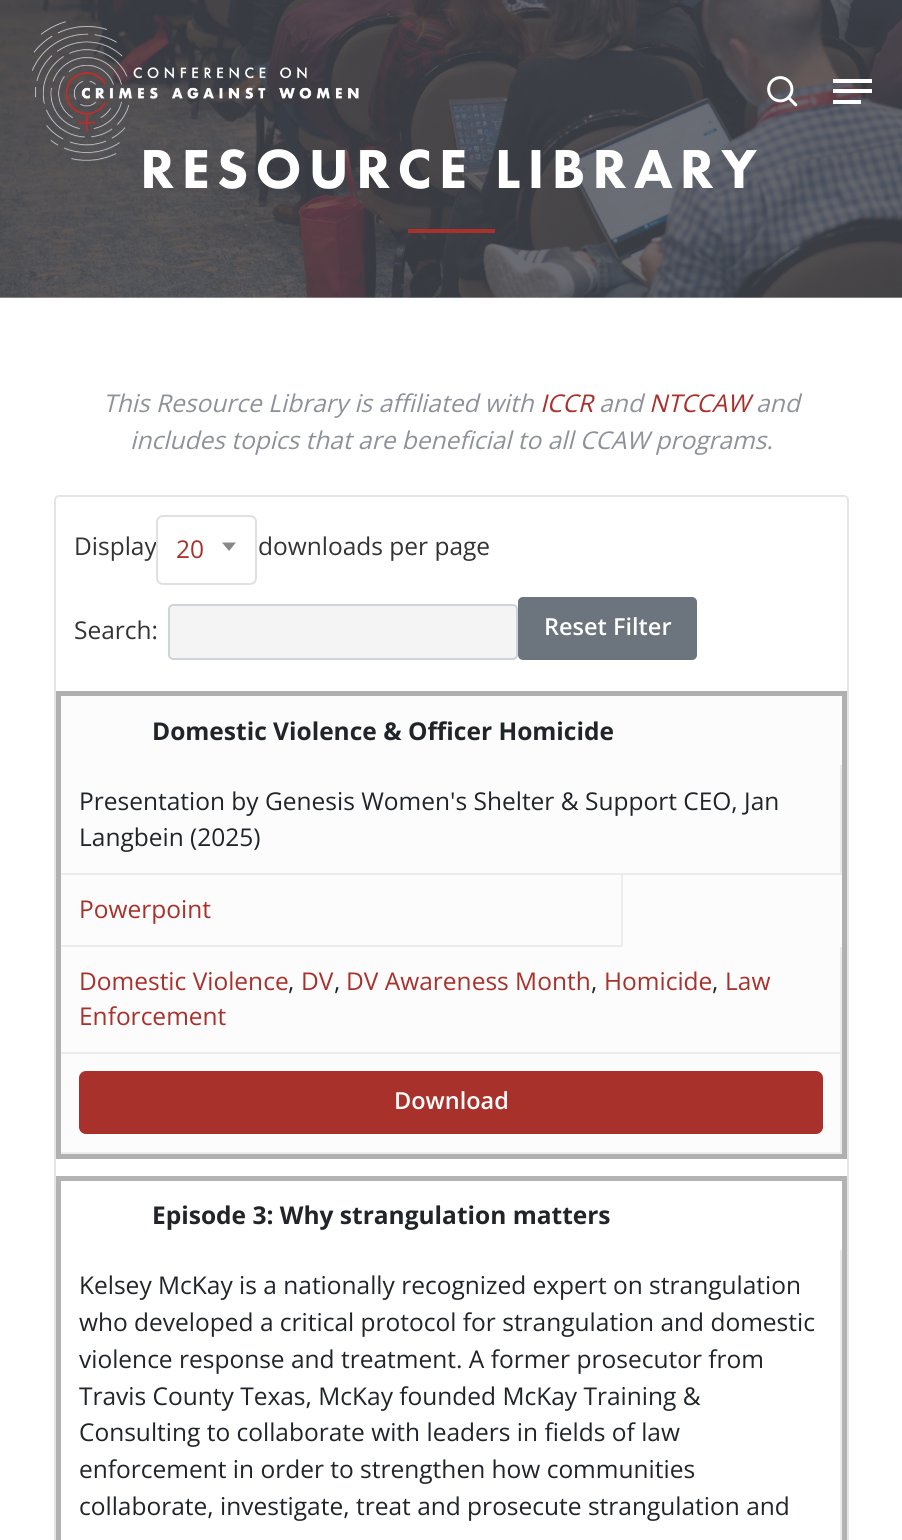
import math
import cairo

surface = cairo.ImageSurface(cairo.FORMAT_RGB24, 902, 1540)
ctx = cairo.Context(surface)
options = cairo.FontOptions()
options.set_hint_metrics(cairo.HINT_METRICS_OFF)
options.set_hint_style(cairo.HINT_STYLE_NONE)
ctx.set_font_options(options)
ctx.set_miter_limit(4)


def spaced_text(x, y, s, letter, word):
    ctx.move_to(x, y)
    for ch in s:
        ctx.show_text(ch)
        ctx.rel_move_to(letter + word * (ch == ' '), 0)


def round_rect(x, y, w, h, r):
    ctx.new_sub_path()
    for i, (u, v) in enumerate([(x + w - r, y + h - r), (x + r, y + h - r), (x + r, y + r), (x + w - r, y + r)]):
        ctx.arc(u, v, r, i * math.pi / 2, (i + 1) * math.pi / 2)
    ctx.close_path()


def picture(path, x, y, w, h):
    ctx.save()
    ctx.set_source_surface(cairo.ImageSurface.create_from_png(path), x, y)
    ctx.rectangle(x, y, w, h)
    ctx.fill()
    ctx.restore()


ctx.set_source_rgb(1, 1, 1)
ctx.paint()
picture("img3.png", 0, 0, 902, 298)
ctx.select_font_face("Futura PT Black")
ctx.set_font_size(56.9)
ctx.set_source_rgb(1, 1, 1)
spaced_text(140, 188, "RESOURCE LIBRARY", 7, 0)
picture("img1.png", 32, 21, 327, 140)
picture("img2.png", 767, 76, 31, 31)
ctx.rectangle(833, 79, 39, 4)
ctx.fill()
ctx.rectangle(833, 100, 28, 4)
ctx.fill()
ctx.rectangle(833, 89, 39, 4)
ctx.fill()
ctx.set_source_rgb(0.659, 0.192, 0.173)
ctx.rectangle(408, 229, 87, 4)
ctx.fill()
ctx.select_font_face("Open Sans", cairo.FONT_SLANT_ITALIC)
ctx.set_font_size(24.5)
ctx.set_source_rgb(0.553, 0.573, 0.604)
ctx.move_to(103, 412)
ctx.show_text("This Resource Library is affiliated with")
ctx.set_source_rgb(0.659, 0.192, 0.173)
ctx.move_to(540, 412)
ctx.show_text("ICCR")
ctx.set_source_rgb(0.553, 0.573, 0.604)
ctx.move_to(599, 412)
ctx.show_text("and")
ctx.set_source_rgb(0.659, 0.192, 0.173)
ctx.move_to(649, 412)
ctx.show_text("NTCCAW")
ctx.set_source_rgb(0.553, 0.573, 0.604)
ctx.move_to(756, 412)
ctx.show_text("and")
ctx.move_to(130, 449)
ctx.show_text("includes topics that are beneficial to all CCAW programs.")
round_rect(55, 496, 793, 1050, 4)
ctx.set_source_rgb(0.898, 0.898, 0.898)
ctx.stroke()
ctx.select_font_face("Open Sans")
ctx.set_source_rgb(0.2, 0.2, 0.2)
ctx.move_to(74, 555)
ctx.show_text("Display")
round_rect(157, 516, 99, 68, 6)
ctx.set_source_rgb(0.878, 0.878, 0.878)
ctx.stroke()
ctx.set_source_rgb(0.659, 0.192, 0.173)
ctx.move_to(176, 558)
ctx.show_text("20")
ctx.set_source_rgb(0.533, 0.533, 0.533)
ctx.new_path()
ctx.move_to(222, 542.5)
ctx.line_to(236, 542.5)
ctx.line_to(229, 551)
ctx.close_path()
ctx.fill()
ctx.set_source_rgb(0.2, 0.2, 0.2)
ctx.move_to(258, 555)
ctx.show_text("downloads per page")
ctx.move_to(74, 639)
ctx.show_text("Search:")
ctx.set_source_rgb(0.957, 0.957, 0.957)
round_rect(169, 605, 348, 54, 4)
ctx.fill_preserve()
ctx.set_source_rgb(0.808, 0.831, 0.855)
ctx.stroke()
ctx.set_source_rgb(0.424, 0.459, 0.49)
round_rect(518, 597, 179, 63, 5)
ctx.fill()
ctx.select_font_face("Open Sans SemiBold")
ctx.set_font_size(23.5)
ctx.set_source_rgb(1, 1, 1)
ctx.move_to(544, 635)
ctx.show_text("Reset Filter")
ctx.set_source_rgb(0.988, 0.988, 0.988)
ctx.rectangle(61, 696, 781, 456)
ctx.fill()
ctx.rectangle(58.5, 693.5, 786, 463)
ctx.set_source_rgb(0.69, 0.69, 0.69)
ctx.set_line_width(5)
ctx.stroke()
ctx.select_font_face("Open Sans", cairo.FONT_SLANT_NORMAL, cairo.FONT_WEIGHT_BOLD)
ctx.set_font_size(24.5)
ctx.set_source_rgb(0.129, 0.145, 0.161)
ctx.move_to(152, 740)
ctx.show_text("Domestic Violence & Officer Homicide")
ctx.set_source_rgb(0.925, 0.925, 0.925)
ctx.rectangle(840, 765, 2, 110)
ctx.fill()
ctx.rectangle(61, 873, 781, 2)
ctx.fill()
ctx.select_font_face("Open Sans")
ctx.set_source_rgb(0.129, 0.145, 0.161)
ctx.move_to(79, 810)
ctx.show_text("Presentation by Genesis Women's Shelter & Support CEO, Jan")
ctx.move_to(79, 846)
ctx.show_text("Langbein (2025)")
ctx.set_source_rgb(0.925, 0.925, 0.925)
ctx.rectangle(621, 875, 2, 72)
ctx.fill()
ctx.rectangle(61, 945, 562, 2)
ctx.fill()
ctx.set_source_rgb(0.659, 0.192, 0.173)
ctx.move_to(79, 918)
ctx.show_text("Powerpoint")
ctx.set_source_rgb(0.925, 0.925, 0.925)
ctx.rectangle(840, 947, 2, 206)
ctx.fill()
ctx.rectangle(61, 1052, 781, 2)
ctx.fill()
ctx.set_source_rgb(0.659, 0.192, 0.173)
ctx.move_to(79, 990)
ctx.show_text("Domestic Violence")
ctx.set_source_rgb(0.129, 0.145, 0.161)
ctx.move_to(288, 990)
ctx.show_text(",")
ctx.set_source_rgb(0.659, 0.192, 0.173)
ctx.move_to(301, 990)
ctx.show_text("DV")
ctx.set_source_rgb(0.129, 0.145, 0.161)
ctx.move_to(334, 990)
ctx.show_text(",")
ctx.set_source_rgb(0.659, 0.192, 0.173)
ctx.move_to(346, 990)
ctx.show_text("DV Awareness Month")
ctx.set_source_rgb(0.129, 0.145, 0.161)
ctx.move_to(591, 990)
ctx.show_text(",")
ctx.set_source_rgb(0.659, 0.192, 0.173)
ctx.move_to(604, 990)
ctx.show_text("Homicide")
ctx.set_source_rgb(0.129, 0.145, 0.161)
ctx.move_to(712, 990)
ctx.show_text(",")
ctx.set_source_rgb(0.659, 0.192, 0.173)
ctx.move_to(725, 990)
ctx.show_text("Law")
ctx.move_to(79, 1025)
ctx.show_text("Enforcement")
ctx.set_source_rgb(0.925, 0.925, 0.925)
ctx.rectangle(61, 1152, 781, 2)
ctx.fill()
ctx.set_source_rgb(0.659, 0.192, 0.173)
round_rect(79, 1071, 744, 63, 7)
ctx.fill()
ctx.select_font_face("Open Sans SemiBold")
ctx.set_font_size(23.5)
ctx.set_source_rgb(1, 1, 1)
ctx.move_to(394, 1109)
ctx.show_text("Download")
ctx.rectangle(58.5, 1178.5, 786, 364)
ctx.set_source_rgb(0.702, 0.702, 0.702)
ctx.stroke()
ctx.select_font_face("Open Sans", cairo.FONT_SLANT_NORMAL, cairo.FONT_WEIGHT_BOLD)
ctx.set_font_size(24.5)
ctx.set_source_rgb(0.129, 0.145, 0.161)
ctx.move_to(152, 1224)
ctx.show_text("Episode 3: Why strangulation matters")
ctx.set_source_rgb(0.925, 0.925, 0.925)
ctx.rectangle(840, 1250, 2, 290)
ctx.fill()
ctx.select_font_face("Open Sans")
ctx.set_source_rgb(0.129, 0.145, 0.161)
ctx.move_to(79, 1294)
ctx.show_text("Kelsey McKay is a nationally recognized expert on strangulation")
ctx.move_to(79, 1331)
ctx.show_text("who developed a critical protocol for strangulation and domestic")
ctx.move_to(79, 1368)
ctx.show_text("violence response and treatment. A former prosecutor from")
ctx.move_to(79, 1405)
ctx.show_text("Travis County Texas, McKay founded McKay Training &")
ctx.move_to(79, 1441)
ctx.show_text("Consulting to collaborate with leaders in fields of law")
ctx.move_to(79, 1478)
ctx.show_text("enforcement in order to strengthen how communities")
ctx.move_to(79, 1515)
ctx.show_text("collaborate, investigate, treat and prosecute strangulation and")
surface.write_to_png("page.png")
